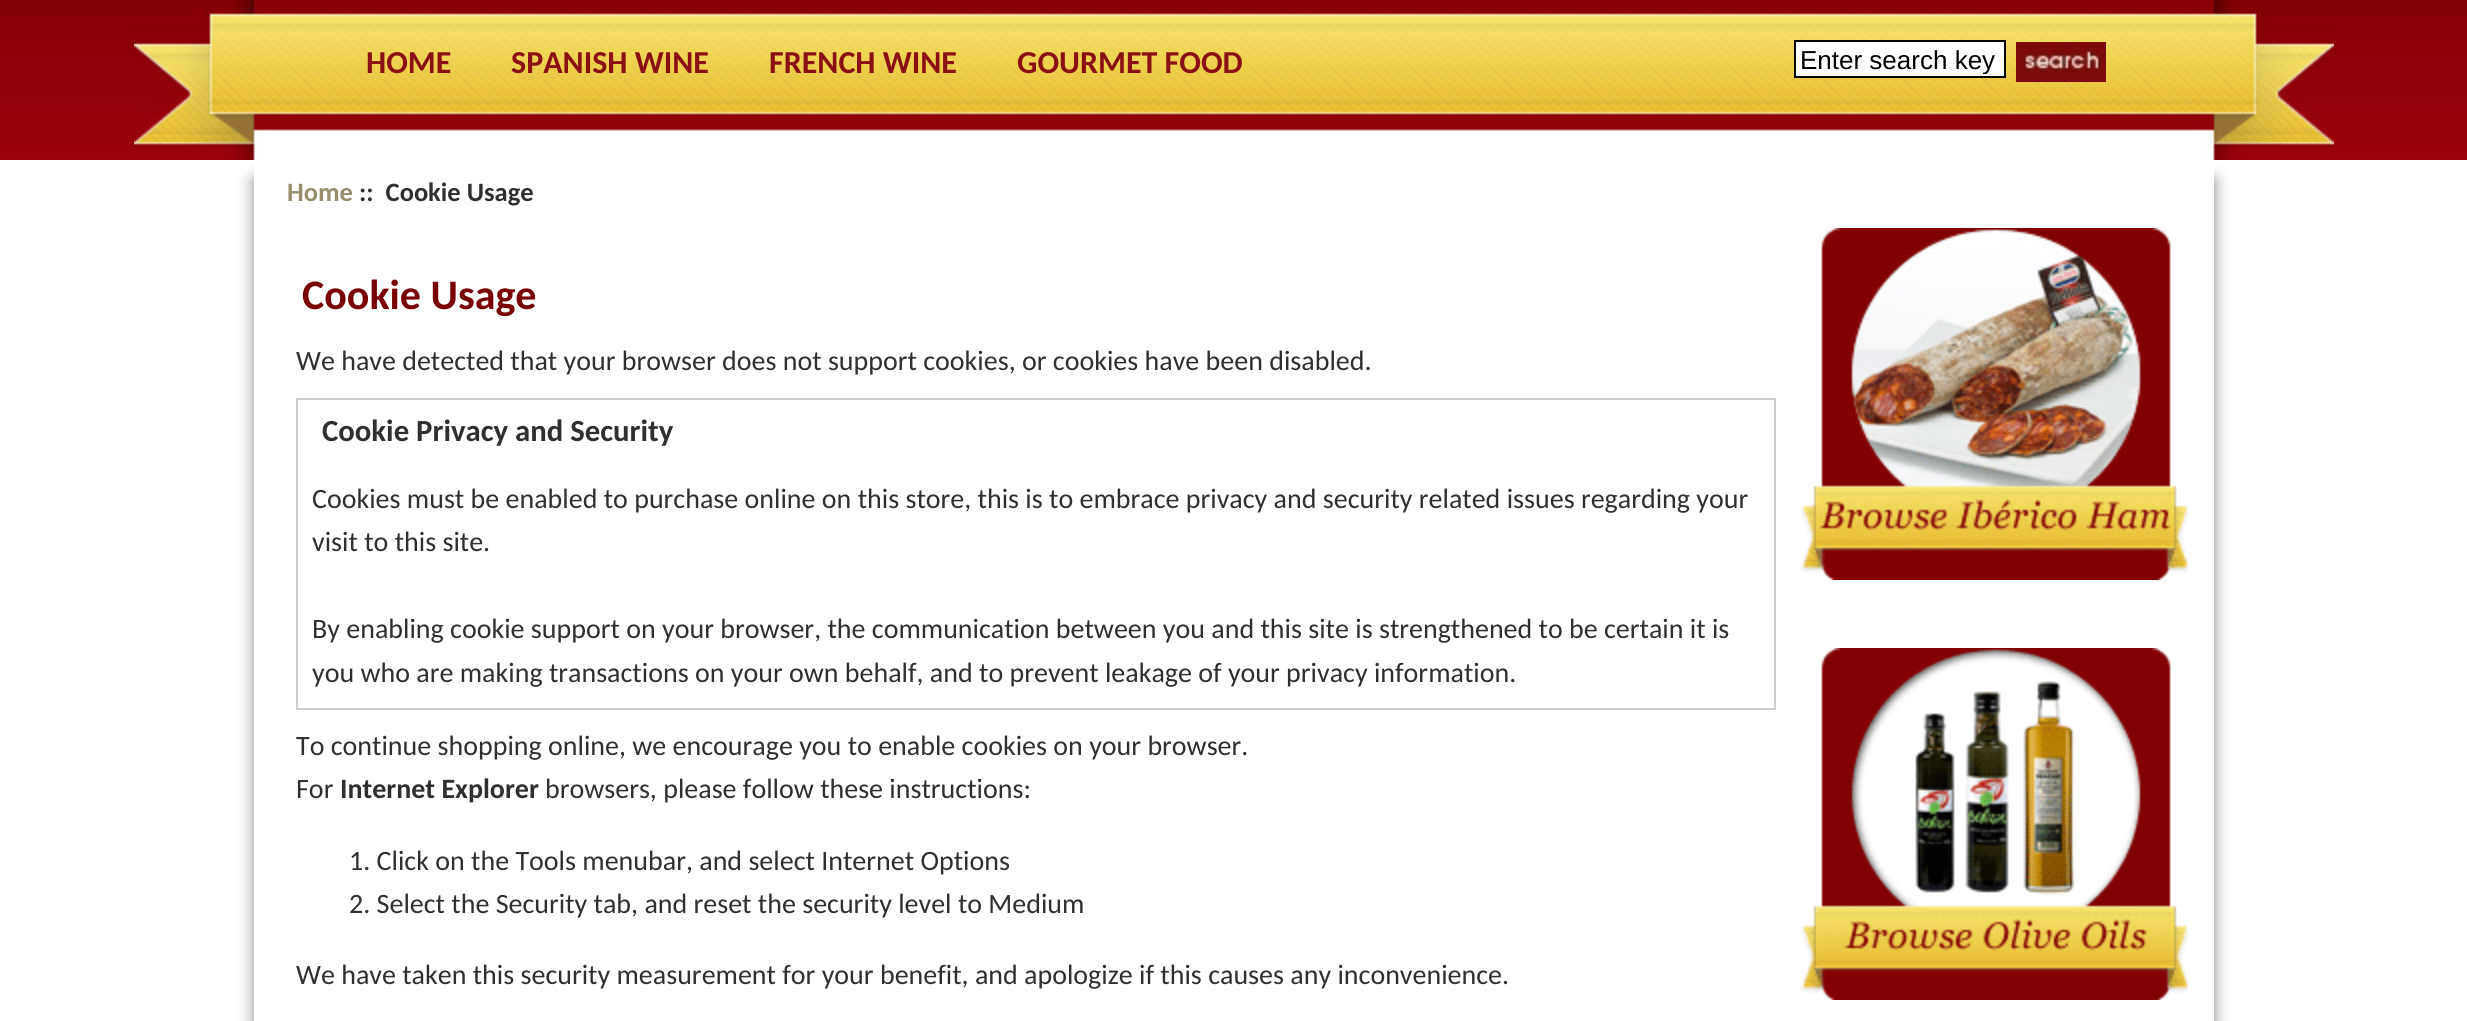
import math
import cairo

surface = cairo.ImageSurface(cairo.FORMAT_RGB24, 2467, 1021)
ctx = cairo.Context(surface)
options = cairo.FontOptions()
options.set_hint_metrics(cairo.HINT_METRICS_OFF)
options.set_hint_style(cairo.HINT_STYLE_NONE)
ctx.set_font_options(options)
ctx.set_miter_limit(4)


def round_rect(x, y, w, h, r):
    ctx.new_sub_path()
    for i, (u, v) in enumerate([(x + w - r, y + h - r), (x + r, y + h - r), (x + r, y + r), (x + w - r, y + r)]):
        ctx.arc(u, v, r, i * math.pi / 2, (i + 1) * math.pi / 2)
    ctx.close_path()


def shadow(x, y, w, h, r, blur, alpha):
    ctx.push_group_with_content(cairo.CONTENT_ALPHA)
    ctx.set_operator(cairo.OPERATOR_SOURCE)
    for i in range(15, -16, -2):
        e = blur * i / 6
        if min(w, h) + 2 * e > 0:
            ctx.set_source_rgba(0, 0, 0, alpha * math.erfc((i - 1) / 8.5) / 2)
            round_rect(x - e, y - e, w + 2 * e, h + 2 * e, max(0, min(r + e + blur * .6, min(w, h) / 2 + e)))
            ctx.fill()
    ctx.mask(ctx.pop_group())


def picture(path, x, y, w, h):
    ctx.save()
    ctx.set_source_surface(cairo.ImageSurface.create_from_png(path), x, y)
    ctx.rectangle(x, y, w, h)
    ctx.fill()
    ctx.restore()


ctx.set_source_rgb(1, 1, 1)
ctx.paint()
picture("img1.png", 0, 0, 2467, 160)
ctx.save()
ctx.set_fill_rule(cairo.FILL_RULE_EVEN_ODD)
ctx.new_path()
ctx.move_to(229, 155)
ctx.line_to(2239, 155)
ctx.line_to(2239, 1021)
ctx.line_to(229, 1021)
ctx.close_path()
ctx.move_to(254, 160)
ctx.line_to(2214, 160)
ctx.line_to(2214, 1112)
ctx.line_to(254, 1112)
ctx.close_path()
ctx.clip()
ctx.set_source_rgb(0.533, 0.533, 0.533)
shadow(254, 180, 1960, 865, 0, 8, 1)
ctx.restore()
picture("img2.png", 134, 0, 2200, 160)
ctx.select_font_face("Carlito", cairo.FONT_SLANT_NORMAL, cairo.FONT_WEIGHT_BOLD)
ctx.set_font_size(32)
ctx.set_source_rgb(0.537, 0.067, 0.075)
ctx.move_to(366, 73)
ctx.show_text("HOME")
ctx.move_to(511, 73)
ctx.show_text("SPANISH WINE")
ctx.move_to(769, 73)
ctx.show_text("FRENCH WINE")
ctx.move_to(1017, 73)
ctx.show_text("GOURMET FOOD")
ctx.set_source_rgb(1, 1, 1)
ctx.rectangle(1795, 41, 210, 36)
ctx.fill_preserve()
ctx.set_source_rgb(0, 0, 0)
ctx.stroke()
ctx.save()
ctx.rectangle(1800, 44, 200, 30)
ctx.clip()
ctx.select_font_face("Liberation Sans")
ctx.set_font_size(26)
ctx.move_to(1800, 69)
ctx.show_text("Enter search key")
ctx.restore()
picture("img3.png", 2016, 42, 90, 40)
ctx.set_font_size(26.5)
ctx.set_source_rgb(0.588, 0.553, 0.424)
ctx.move_to(287, 201)
ctx.show_text("Home")
ctx.set_source_rgb(0.184, 0.184, 0.184)
ctx.move_to(359, 201)
ctx.show_text("::  Cookie Usage")
ctx.set_font_size(42)
ctx.set_source_rgb(0.475, 0.004, 0.012)
ctx.move_to(302, 309)
ctx.show_text("Cookie Usage")
ctx.select_font_face("Carlito")
ctx.set_font_size(28)
ctx.set_source_rgb(0.184, 0.184, 0.184)
ctx.move_to(296, 370)
ctx.show_text("We have detected that your browser does not support cookies, or cookies have been disabled.")
ctx.rectangle(297, 399, 1478, 310)
ctx.set_source_rgb(0.8, 0.8, 0.8)
ctx.stroke()
ctx.select_font_face("Carlito", cairo.FONT_SLANT_NORMAL, cairo.FONT_WEIGHT_BOLD)
ctx.set_font_size(30.75)
ctx.set_source_rgb(0.184, 0.184, 0.184)
ctx.move_to(322, 441)
ctx.show_text("Cookie Privacy and Security")
ctx.select_font_face("Carlito")
ctx.set_font_size(28)
ctx.move_to(312, 508)
ctx.show_text("Cookies must be enabled to purchase online on this store, this is to embrace privacy and security related issues regarding your")
ctx.move_to(312, 551)
ctx.show_text("visit to this site.")
ctx.move_to(312, 638)
ctx.show_text("By enabling cookie support on your browser, the communication between you and this site is strengthened to be certain it is")
ctx.move_to(312, 682)
ctx.show_text("you who are making transactions on your own behalf, and to prevent leakage of your privacy information.")
ctx.move_to(296, 755)
ctx.show_text("To continue shopping online, we encourage you to enable cookies on your browser.")
ctx.move_to(296, 798)
ctx.show_text("For")
ctx.select_font_face("Carlito", cairo.FONT_SLANT_NORMAL, cairo.FONT_WEIGHT_BOLD)
ctx.move_to(340, 798)
ctx.show_text("Internet Explorer")
ctx.select_font_face("Carlito")
ctx.move_to(545, 798)
ctx.show_text("browsers, please follow these instructions:")
ctx.move_to(349, 870)
ctx.show_text("1. Click on the Tools menubar, and select Internet Options")
ctx.move_to(349, 913)
ctx.show_text("2. Select the Security tab, and reset the security level to Medium")
ctx.move_to(296, 984)
ctx.show_text("We have taken this security measurement for your benefit, and apologize if this causes any inconvenience.")
picture("img4.png", 1800, 228, 388, 352)
picture("img5.png", 1800, 648, 388, 352)
surface.write_to_png("page.png")
